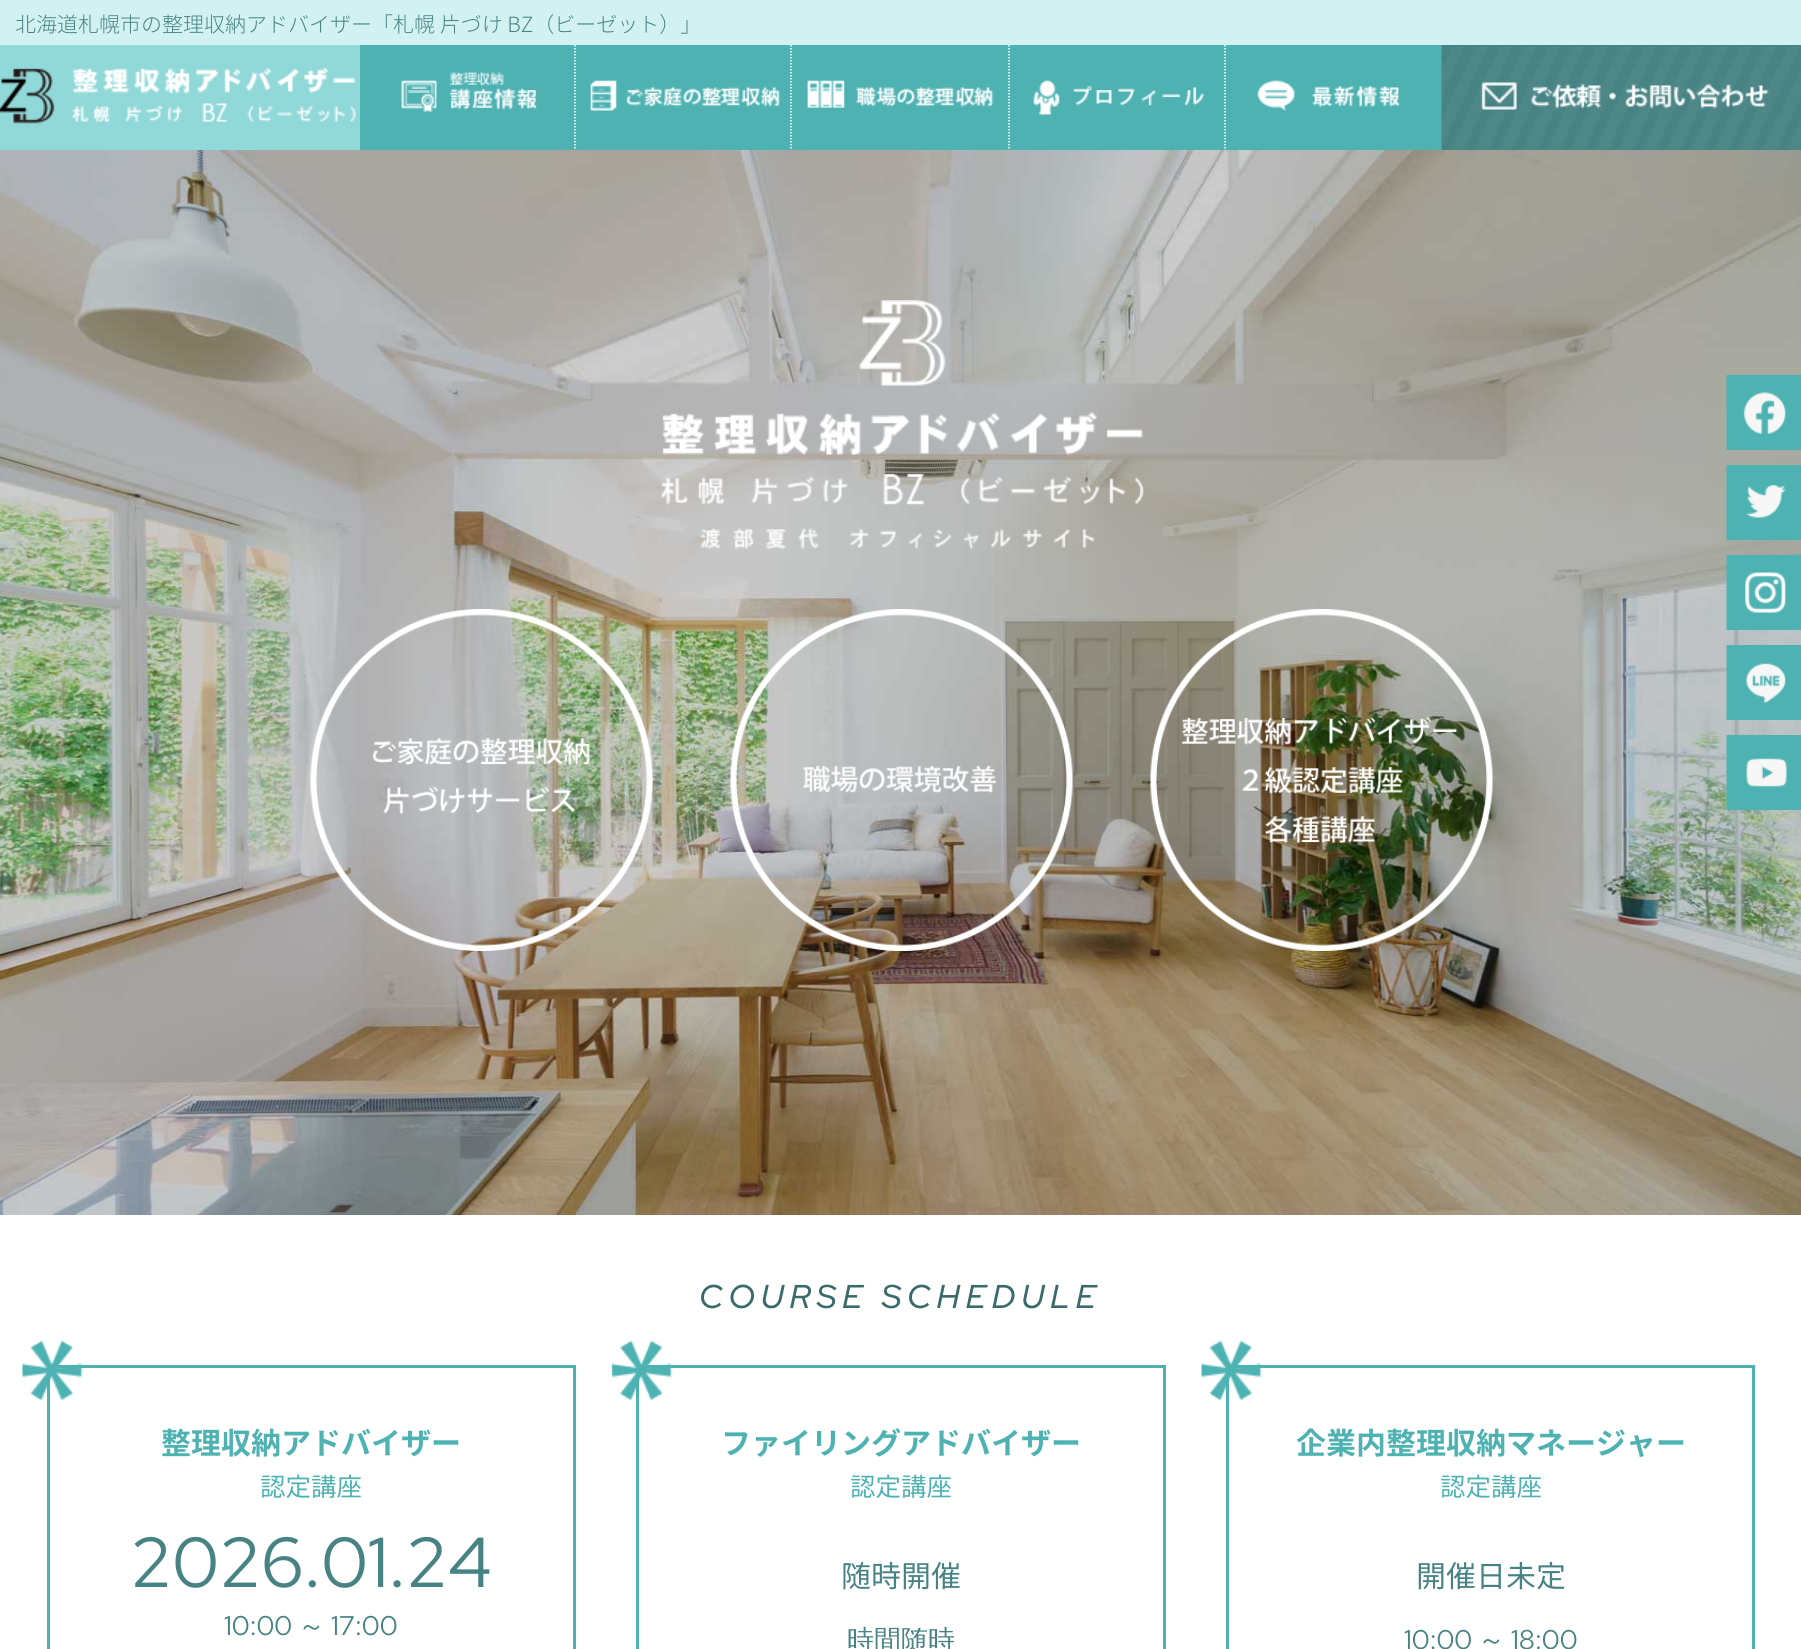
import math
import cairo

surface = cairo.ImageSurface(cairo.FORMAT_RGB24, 1801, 1649)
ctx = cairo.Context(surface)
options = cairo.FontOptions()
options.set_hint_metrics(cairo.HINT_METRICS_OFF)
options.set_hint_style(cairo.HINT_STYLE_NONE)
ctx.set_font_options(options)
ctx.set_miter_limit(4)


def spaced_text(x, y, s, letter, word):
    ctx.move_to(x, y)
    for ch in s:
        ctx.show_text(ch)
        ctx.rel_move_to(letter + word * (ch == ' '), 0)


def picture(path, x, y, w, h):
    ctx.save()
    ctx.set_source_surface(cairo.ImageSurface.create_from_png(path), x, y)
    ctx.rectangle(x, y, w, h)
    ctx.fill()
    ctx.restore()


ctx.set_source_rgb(1, 1, 1)
ctx.paint()
ctx.set_source_rgb(0.824, 0.949, 0.949)
ctx.rectangle(0, 0, 1801, 45)
ctx.fill()
ctx.select_font_face("Noto Sans JP Light")
ctx.set_font_size(21)
ctx.set_source_rgb(0.278, 0.514, 0.518)
ctx.move_to(15, 32)
ctx.show_text("北海道札幌市の整理収納アドバイザー「札幌 片づけ BZ（ビーゼット）」")
ctx.set_source_rgb(0.569, 0.847, 0.847)
ctx.rectangle(0, 45, 360, 105)
ctx.fill()
picture("img1.png", 0, 67, 356, 57)
ctx.set_source_rgb(0.306, 0.698, 0.698)
ctx.rectangle(360, 45, 1082, 105)
ctx.fill()
picture("img2.png", 401, 71, 136, 41)
ctx.new_path()
ctx.move_to(575, 45)
ctx.line_to(575, 150)
ctx.set_source_rgb(1, 1, 1)
ctx.set_line_width(1.5)
ctx.set_dash([1.5, 1.5])
ctx.stroke()
picture("img3.png", 590, 80, 190, 31)
ctx.new_path()
ctx.move_to(791, 45)
ctx.line_to(791, 150)
ctx.stroke()
picture("img4.png", 807, 80, 187, 28)
ctx.new_path()
ctx.move_to(1009, 45)
ctx.line_to(1009, 150)
ctx.stroke()
picture("img5.png", 1033, 80, 172, 35)
ctx.new_path()
ctx.move_to(1225, 45)
ctx.line_to(1225, 150)
ctx.stroke()
picture("img6.png", 1257, 80, 143, 31)
picture("img7.png", 1441, 45, 360, 105)
picture("img8.png", 1481, 82, 288, 28)
picture("img14.png", 0, 150, 1801, 1065)
picture("img9.png", 1726, 375, 75, 75)
picture("img10.png", 1726, 465, 75, 75)
picture("img11.png", 1726, 555, 75, 75)
picture("img12.png", 1726, 645, 75, 75)
picture("img13.png", 1726, 735, 75, 75)
picture("img15.png", 661, 300, 483, 250)
picture("img16.png", 310, 609, 343, 342)
picture("img17.png", 730, 609, 343, 342)
picture("img18.png", 1150, 609, 343, 342)
ctx.select_font_face("Red Hat Display Medium", cairo.FONT_SLANT_ITALIC)
ctx.set_font_size(33)
ctx.set_source_rgb(0.227, 0.42, 0.424)
spaced_text(699, 1308, "COURSE SCHEDULE", 6, 0)
ctx.rectangle(48.5, 1366.5, 526, 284)
ctx.set_source_rgb(0.306, 0.698, 0.698)
ctx.set_line_width(3)
ctx.set_dash([])
ctx.stroke()
picture("img19.png", 22, 1340, 61, 61)
ctx.select_font_face("Noto Sans JP", cairo.FONT_SLANT_NORMAL, cairo.FONT_WEIGHT_BOLD)
ctx.set_font_size(30)
ctx.move_to(161, 1454)
ctx.show_text("整理収納アドバイザー")
ctx.select_font_face("Noto Sans JP")
ctx.set_font_size(25.5)
ctx.move_to(260, 1496)
ctx.show_text("認定講座")
ctx.select_font_face("Red Hat Display")
ctx.set_font_size(70.5)
ctx.set_source_rgb(0.278, 0.514, 0.518)
ctx.move_to(130, 1587)
ctx.show_text("2026.01.24")
ctx.set_font_size(27)
ctx.move_to(224, 1635)
ctx.show_text("10:00")
ctx.select_font_face("WenQuanYi Zen Hei Medium")
ctx.move_to(298, 1635)
ctx.show_text("～")
ctx.select_font_face("Red Hat Display")
ctx.move_to(331, 1635)
ctx.show_text("17:00")
ctx.rectangle(637.5, 1366.5, 527, 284)
ctx.set_source_rgb(0.306, 0.698, 0.698)
ctx.stroke()
picture("img20.png", 611, 1340, 62, 61)
ctx.select_font_face("Noto Sans JP", cairo.FONT_SLANT_NORMAL, cairo.FONT_WEIGHT_BOLD)
ctx.set_font_size(30)
ctx.move_to(721, 1454)
ctx.show_text("ファイリングアドバイザー")
ctx.select_font_face("Noto Sans JP")
ctx.set_font_size(25.5)
ctx.move_to(850, 1496)
ctx.show_text("認定講座")
ctx.set_font_size(30)
ctx.set_source_rgb(0.278, 0.514, 0.518)
ctx.move_to(841, 1587)
ctx.show_text("随時開催")
ctx.select_font_face("WenQuanYi Zen Hei Medium")
ctx.set_font_size(27)
ctx.move_to(847, 1649)
ctx.show_text("時間随時")
ctx.rectangle(1227.5, 1366.5, 526, 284)
ctx.set_source_rgb(0.306, 0.698, 0.698)
ctx.stroke()
picture("img21.png", 1201, 1340, 61, 61)
ctx.select_font_face("Noto Sans JP", cairo.FONT_SLANT_NORMAL, cairo.FONT_WEIGHT_BOLD)
ctx.set_font_size(30)
ctx.move_to(1296, 1454)
ctx.show_text("企業内整理収納マネージャー")
ctx.select_font_face("Noto Sans JP")
ctx.set_font_size(25.5)
ctx.move_to(1440, 1496)
ctx.show_text("認定講座")
ctx.set_font_size(30)
ctx.set_source_rgb(0.278, 0.514, 0.518)
ctx.move_to(1416, 1587)
ctx.show_text("開催日未定")
ctx.select_font_face("Red Hat Display")
ctx.set_font_size(27)
ctx.move_to(1404, 1649)
ctx.show_text("10:00")
ctx.select_font_face("WenQuanYi Zen Hei Medium")
ctx.move_to(1478, 1649)
ctx.show_text("～")
ctx.select_font_face("Red Hat Display")
ctx.move_to(1511, 1649)
ctx.show_text("18:00")
surface.write_to_png("page.png")
